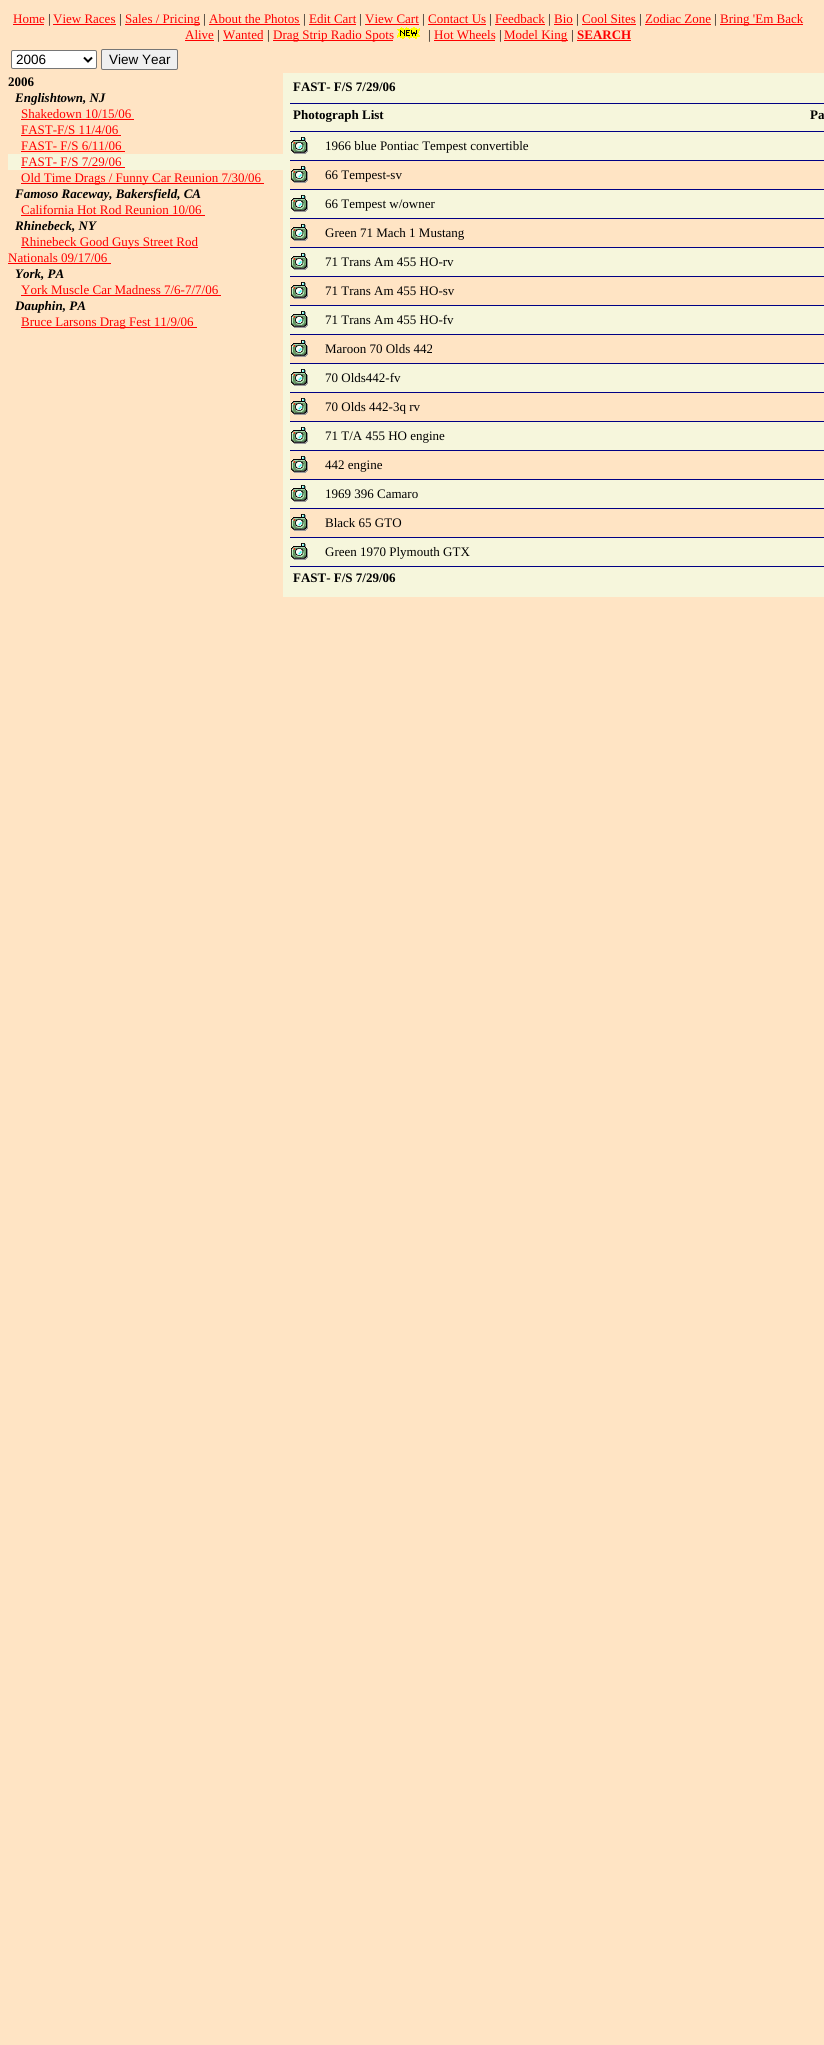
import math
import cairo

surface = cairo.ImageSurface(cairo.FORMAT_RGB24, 824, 2045)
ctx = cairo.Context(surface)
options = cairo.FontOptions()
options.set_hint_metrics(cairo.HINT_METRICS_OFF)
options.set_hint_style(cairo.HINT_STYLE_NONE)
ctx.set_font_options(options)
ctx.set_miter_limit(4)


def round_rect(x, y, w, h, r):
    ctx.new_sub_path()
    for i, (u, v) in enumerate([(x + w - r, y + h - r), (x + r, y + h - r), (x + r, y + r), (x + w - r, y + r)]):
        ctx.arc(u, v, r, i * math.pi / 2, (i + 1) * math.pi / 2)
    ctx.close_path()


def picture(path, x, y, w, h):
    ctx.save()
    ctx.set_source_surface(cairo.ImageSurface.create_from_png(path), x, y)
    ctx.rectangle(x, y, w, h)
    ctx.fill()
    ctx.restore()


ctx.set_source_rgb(1, 0.894, 0.769)
ctx.paint()
ctx.select_font_face("Liberation Serif")
ctx.set_font_size(13)
ctx.set_source_rgb(1, 0, 0)
ctx.move_to(13, 23)
ctx.show_text("Home")
ctx.rectangle(13, 24, 31, 1)
ctx.fill()
ctx.set_source_rgb(0, 0, 0)
ctx.move_to(48, 23)
ctx.show_text("|")
ctx.set_source_rgb(1, 0, 0)
ctx.move_to(53, 23)
ctx.show_text("View Races")
ctx.rectangle(53, 24, 63, 1)
ctx.fill()
ctx.set_source_rgb(0, 0, 0)
ctx.move_to(119, 23)
ctx.show_text("|")
ctx.set_source_rgb(1, 0, 0)
ctx.rectangle(125, 24, 75, 1)
ctx.fill()
ctx.move_to(125, 23)
ctx.show_text("Sales / Pricing")
ctx.set_source_rgb(0, 0, 0)
ctx.move_to(203, 23)
ctx.show_text("|")
ctx.set_source_rgb(1, 0, 0)
ctx.move_to(209, 23)
ctx.show_text("About the Photos")
ctx.rectangle(209, 24, 91, 1)
ctx.fill()
ctx.set_source_rgb(0, 0, 0)
ctx.move_to(303, 23)
ctx.show_text("|")
ctx.set_source_rgb(1, 0, 0)
ctx.move_to(309, 23)
ctx.show_text("Edit Cart")
ctx.rectangle(309, 24, 47, 1)
ctx.fill()
ctx.set_source_rgb(0, 0, 0)
ctx.move_to(359, 23)
ctx.show_text("|")
ctx.set_source_rgb(1, 0, 0)
ctx.move_to(365, 23)
ctx.show_text("View Cart")
ctx.rectangle(365, 24, 54, 1)
ctx.fill()
ctx.set_source_rgb(0, 0, 0)
ctx.move_to(422, 23)
ctx.show_text("|")
ctx.set_source_rgb(1, 0, 0)
ctx.move_to(428, 23)
ctx.show_text("Contact Us")
ctx.rectangle(428, 24, 58, 1)
ctx.fill()
ctx.set_source_rgb(0, 0, 0)
ctx.move_to(489, 23)
ctx.show_text("|")
ctx.set_source_rgb(1, 0, 0)
ctx.move_to(495, 23)
ctx.show_text("Feedback")
ctx.rectangle(495, 24, 50, 1)
ctx.fill()
ctx.set_source_rgb(0, 0, 0)
ctx.move_to(548, 23)
ctx.show_text("|")
ctx.set_source_rgb(1, 0, 0)
ctx.move_to(554, 23)
ctx.show_text("Bio")
ctx.rectangle(554, 24, 19, 1)
ctx.fill()
ctx.set_source_rgb(0, 0, 0)
ctx.move_to(576, 23)
ctx.show_text("|")
ctx.set_source_rgb(1, 0, 0)
ctx.move_to(582, 23)
ctx.show_text("Cool Sites")
ctx.rectangle(582, 24, 54, 1)
ctx.fill()
ctx.set_source_rgb(0, 0, 0)
ctx.move_to(639, 23)
ctx.show_text("|")
ctx.set_source_rgb(1, 0, 0)
ctx.move_to(645, 23)
ctx.show_text("Zodiac Zone")
ctx.rectangle(645, 24, 66, 1)
ctx.fill()
ctx.set_source_rgb(0, 0, 0)
ctx.move_to(714, 23)
ctx.show_text("|")
ctx.set_source_rgb(1, 0, 0)
ctx.rectangle(720, 24, 83, 1)
ctx.fill()
ctx.move_to(720, 23)
ctx.show_text("Bring 'Em Back")
ctx.move_to(185, 39)
ctx.show_text("Alive")
ctx.rectangle(185, 40, 29, 1)
ctx.fill()
ctx.set_source_rgb(0, 0, 0)
ctx.move_to(217, 39)
ctx.show_text("|")
ctx.set_source_rgb(1, 0, 0)
ctx.move_to(223, 39)
ctx.show_text("Wanted")
ctx.rectangle(223, 40, 40, 1)
ctx.fill()
ctx.set_source_rgb(0, 0, 0)
ctx.move_to(267, 39)
ctx.show_text("|")
ctx.set_source_rgb(1, 0, 0)
ctx.rectangle(273, 40, 120, 1)
ctx.fill()
ctx.move_to(273, 39)
ctx.show_text("Drag Strip Radio Spots")
picture("img1.png", 397, 27, 23, 12)
ctx.set_source_rgb(0, 0, 0)
ctx.move_to(428, 39)
ctx.show_text("|")
ctx.set_source_rgb(1, 0, 0)
ctx.move_to(434, 39)
ctx.show_text("Hot Wheels")
ctx.rectangle(434, 40, 61, 1)
ctx.fill()
ctx.set_source_rgb(0, 0, 0)
ctx.move_to(499, 39)
ctx.show_text("|")
ctx.set_source_rgb(1, 0, 0)
ctx.rectangle(504, 40, 64, 1)
ctx.fill()
ctx.move_to(504, 39)
ctx.show_text("Model King")
ctx.set_source_rgb(0, 0, 0)
ctx.move_to(571, 39)
ctx.show_text("|")
ctx.select_font_face("Liberation Serif", cairo.FONT_SLANT_NORMAL, cairo.FONT_WEIGHT_BOLD)
ctx.set_source_rgb(1, 0, 0)
ctx.move_to(577, 39)
ctx.show_text("SEARCH")
ctx.rectangle(577, 40, 54, 1)
ctx.fill()
ctx.set_source_rgb(1, 1, 1)
round_rect(11.5, 50.5, 85, 18, 1.5)
ctx.fill_preserve()
ctx.set_source_rgb(0.463, 0.463, 0.463)
ctx.set_line_width(1)
ctx.stroke()
ctx.new_path()
ctx.move_to(84, 57.5)
ctx.line_to(88, 61.5)
ctx.line_to(92, 57.5)
ctx.set_source_rgb(0, 0, 0)
ctx.set_line_width(2)
ctx.stroke()
ctx.select_font_face("Liberation Sans")
ctx.set_font_size(13.5)
ctx.move_to(16, 64)
ctx.show_text("2006")
ctx.set_source_rgb(0.937, 0.937, 0.937)
round_rect(101.5, 49.5, 76, 20, 1.5)
ctx.fill_preserve()
ctx.set_source_rgb(0.463, 0.463, 0.463)
ctx.set_line_width(1)
ctx.stroke()
ctx.set_source_rgb(0, 0, 0)
ctx.move_to(109, 64)
ctx.show_text("View Year")
ctx.select_font_face("Liberation Serif", cairo.FONT_SLANT_NORMAL, cairo.FONT_WEIGHT_BOLD)
ctx.set_font_size(13)
ctx.move_to(8, 86)
ctx.show_text("2006")
ctx.select_font_face("Liberation Serif", cairo.FONT_SLANT_ITALIC, cairo.FONT_WEIGHT_BOLD)
ctx.move_to(15, 102)
ctx.show_text("Englishtown, NJ")
ctx.select_font_face("Liberation Serif")
ctx.set_source_rgb(1, 0, 0)
ctx.move_to(21, 118)
ctx.show_text("Shakedown 10/15/06")
ctx.rectangle(21, 119, 113, 1)
ctx.fill()
ctx.move_to(21, 134)
ctx.show_text("FAST-F/S 11/4/06")
ctx.rectangle(21, 135, 100, 1)
ctx.fill()
ctx.move_to(21, 150)
ctx.show_text("FAST- F/S 6/11/06")
ctx.rectangle(21, 151, 104, 1)
ctx.fill()
ctx.set_source_rgb(0.961, 0.961, 0.863)
ctx.rectangle(8, 154, 275, 16)
ctx.fill()
ctx.set_source_rgb(1, 0, 0)
ctx.move_to(21, 166)
ctx.show_text("FAST- F/S 7/29/06")
ctx.rectangle(21, 167, 104, 1)
ctx.fill()
ctx.rectangle(21, 183, 243, 1)
ctx.fill()
ctx.move_to(21, 182)
ctx.show_text("Old Time Drags / Funny Car Reunion 7/30/06")
ctx.select_font_face("Liberation Serif", cairo.FONT_SLANT_ITALIC, cairo.FONT_WEIGHT_BOLD)
ctx.set_source_rgb(0, 0, 0)
ctx.move_to(15, 198)
ctx.show_text("Famoso Raceway, Bakersfield, CA")
ctx.select_font_face("Liberation Serif")
ctx.set_source_rgb(1, 0, 0)
ctx.move_to(21, 214)
ctx.show_text("California Hot Rod Reunion 10/06")
ctx.rectangle(21, 215, 184, 1)
ctx.fill()
ctx.select_font_face("Liberation Serif", cairo.FONT_SLANT_ITALIC, cairo.FONT_WEIGHT_BOLD)
ctx.set_source_rgb(0, 0, 0)
ctx.move_to(15, 230)
ctx.show_text("Rhinebeck, NY")
ctx.set_source_rgb(1, 0, 0)
ctx.rectangle(21, 247, 177, 1)
ctx.fill()
ctx.select_font_face("Liberation Serif")
ctx.move_to(21, 246)
ctx.show_text("Rhinebeck Good Guys Street Rod")
ctx.move_to(8, 262)
ctx.show_text("Nationals 09/17/06")
ctx.rectangle(8, 263, 103, 1)
ctx.fill()
ctx.select_font_face("Liberation Serif", cairo.FONT_SLANT_ITALIC, cairo.FONT_WEIGHT_BOLD)
ctx.set_source_rgb(0, 0, 0)
ctx.move_to(15, 278)
ctx.show_text("York, PA")
ctx.select_font_face("Liberation Serif")
ctx.set_source_rgb(1, 0, 0)
ctx.move_to(21, 294)
ctx.show_text("York Muscle Car Madness 7/6-7/7/06")
ctx.rectangle(21, 295, 200, 1)
ctx.fill()
ctx.select_font_face("Liberation Serif", cairo.FONT_SLANT_ITALIC, cairo.FONT_WEIGHT_BOLD)
ctx.set_source_rgb(0, 0, 0)
ctx.move_to(15, 310)
ctx.show_text("Dauphin, PA")
ctx.set_source_rgb(1, 0, 0)
ctx.rectangle(21, 327, 176, 1)
ctx.fill()
ctx.select_font_face("Liberation Serif")
ctx.move_to(21, 326)
ctx.show_text("Bruce Larsons Drag Fest 11/9/06")
ctx.set_source_rgb(0.961, 0.961, 0.863)
ctx.rectangle(283, 73, 541, 524)
ctx.fill()
ctx.select_font_face("Liberation Serif", cairo.FONT_SLANT_NORMAL, cairo.FONT_WEIGHT_BOLD)
ctx.set_source_rgb(0, 0, 0)
ctx.move_to(293, 91)
ctx.show_text("FAST- F/S 7/29/06")
ctx.set_source_rgb(0, 0, 0.518)
ctx.rectangle(290, 103, 534, 1)
ctx.fill()
ctx.set_source_rgb(0, 0, 0)
ctx.move_to(293, 119)
ctx.show_text("Photograph List")
ctx.move_to(810, 119)
ctx.show_text("Pa")
ctx.set_source_rgb(0, 0, 0.518)
ctx.rectangle(290, 131, 534, 1)
ctx.fill()
picture("img2.png", 291, 137, 17, 17)
ctx.select_font_face("Liberation Serif")
ctx.set_source_rgb(0, 0, 0)
ctx.move_to(325, 150)
ctx.show_text("1966 blue Pontiac Tempest convertible")
ctx.set_source_rgb(0, 0, 0.518)
ctx.rectangle(290, 160, 534, 1)
ctx.fill()
ctx.set_source_rgb(1, 0.894, 0.769)
ctx.rectangle(290, 161, 534, 28)
ctx.fill()
picture("img3.png", 291, 166, 17, 17)
ctx.set_source_rgb(0, 0, 0)
ctx.move_to(325, 179)
ctx.show_text("66 Tempest-sv")
ctx.set_source_rgb(0, 0, 0.518)
ctx.rectangle(290, 189, 534, 1)
ctx.fill()
picture("img2.png", 291, 195, 17, 17)
ctx.set_source_rgb(0, 0, 0)
ctx.move_to(325, 208)
ctx.show_text("66 Tempest w/owner")
ctx.set_source_rgb(0, 0, 0.518)
ctx.rectangle(290, 218, 534, 1)
ctx.fill()
ctx.set_source_rgb(1, 0.894, 0.769)
ctx.rectangle(290, 219, 534, 28)
ctx.fill()
picture("img3.png", 291, 224, 17, 17)
ctx.set_source_rgb(0, 0, 0)
ctx.move_to(325, 237)
ctx.show_text("Green 71 Mach 1 Mustang")
ctx.set_source_rgb(0, 0, 0.518)
ctx.rectangle(290, 247, 534, 1)
ctx.fill()
picture("img2.png", 291, 253, 17, 17)
ctx.set_source_rgb(0, 0, 0)
ctx.move_to(325, 266)
ctx.show_text("71 Trans Am 455 HO-rv")
ctx.set_source_rgb(0, 0, 0.518)
ctx.rectangle(290, 276, 534, 1)
ctx.fill()
ctx.set_source_rgb(1, 0.894, 0.769)
ctx.rectangle(290, 277, 534, 28)
ctx.fill()
picture("img3.png", 291, 282, 17, 17)
ctx.set_source_rgb(0, 0, 0)
ctx.move_to(325, 295)
ctx.show_text("71 Trans Am 455 HO-sv")
ctx.set_source_rgb(0, 0, 0.518)
ctx.rectangle(290, 305, 534, 1)
ctx.fill()
picture("img2.png", 291, 311, 17, 17)
ctx.set_source_rgb(0, 0, 0)
ctx.move_to(325, 324)
ctx.show_text("71 Trans Am 455 HO-fv")
ctx.set_source_rgb(0, 0, 0.518)
ctx.rectangle(290, 334, 534, 1)
ctx.fill()
ctx.set_source_rgb(1, 0.894, 0.769)
ctx.rectangle(290, 335, 534, 28)
ctx.fill()
picture("img3.png", 291, 340, 17, 17)
ctx.set_source_rgb(0, 0, 0)
ctx.move_to(325, 353)
ctx.show_text("Maroon 70 Olds 442")
ctx.set_source_rgb(0, 0, 0.518)
ctx.rectangle(290, 363, 534, 1)
ctx.fill()
picture("img2.png", 291, 369, 17, 17)
ctx.set_source_rgb(0, 0, 0)
ctx.move_to(325, 382)
ctx.show_text("70 Olds442-fv")
ctx.set_source_rgb(0, 0, 0.518)
ctx.rectangle(290, 392, 534, 1)
ctx.fill()
ctx.set_source_rgb(1, 0.894, 0.769)
ctx.rectangle(290, 393, 534, 28)
ctx.fill()
picture("img3.png", 291, 398, 17, 17)
ctx.set_source_rgb(0, 0, 0)
ctx.move_to(325, 411)
ctx.show_text("70 Olds 442-3q rv")
ctx.set_source_rgb(0, 0, 0.518)
ctx.rectangle(290, 421, 534, 1)
ctx.fill()
picture("img2.png", 291, 427, 17, 17)
ctx.set_source_rgb(0, 0, 0)
ctx.move_to(325, 440)
ctx.show_text("71 T/A 455 HO engine")
ctx.set_source_rgb(0, 0, 0.518)
ctx.rectangle(290, 450, 534, 1)
ctx.fill()
ctx.set_source_rgb(1, 0.894, 0.769)
ctx.rectangle(290, 451, 534, 28)
ctx.fill()
picture("img3.png", 291, 456, 17, 17)
ctx.set_source_rgb(0, 0, 0)
ctx.move_to(325, 469)
ctx.show_text("442 engine")
ctx.set_source_rgb(0, 0, 0.518)
ctx.rectangle(290, 479, 534, 1)
ctx.fill()
picture("img2.png", 291, 485, 17, 17)
ctx.set_source_rgb(0, 0, 0)
ctx.move_to(325, 498)
ctx.show_text("1969 396 Camaro")
ctx.set_source_rgb(0, 0, 0.518)
ctx.rectangle(290, 508, 534, 1)
ctx.fill()
ctx.set_source_rgb(1, 0.894, 0.769)
ctx.rectangle(290, 509, 534, 28)
ctx.fill()
picture("img3.png", 291, 514, 17, 17)
ctx.set_source_rgb(0, 0, 0)
ctx.move_to(325, 527)
ctx.show_text("Black 65 GTO")
ctx.set_source_rgb(0, 0, 0.518)
ctx.rectangle(290, 537, 534, 1)
ctx.fill()
picture("img2.png", 291, 543, 17, 17)
ctx.set_source_rgb(0, 0, 0)
ctx.move_to(325, 556)
ctx.show_text("Green 1970 Plymouth GTX")
ctx.set_source_rgb(0, 0, 0.518)
ctx.rectangle(290, 566, 534, 1)
ctx.fill()
ctx.select_font_face("Liberation Serif", cairo.FONT_SLANT_NORMAL, cairo.FONT_WEIGHT_BOLD)
ctx.set_source_rgb(0, 0, 0)
ctx.move_to(293, 582)
ctx.show_text("FAST- F/S 7/29/06")
surface.write_to_png("page.png")
